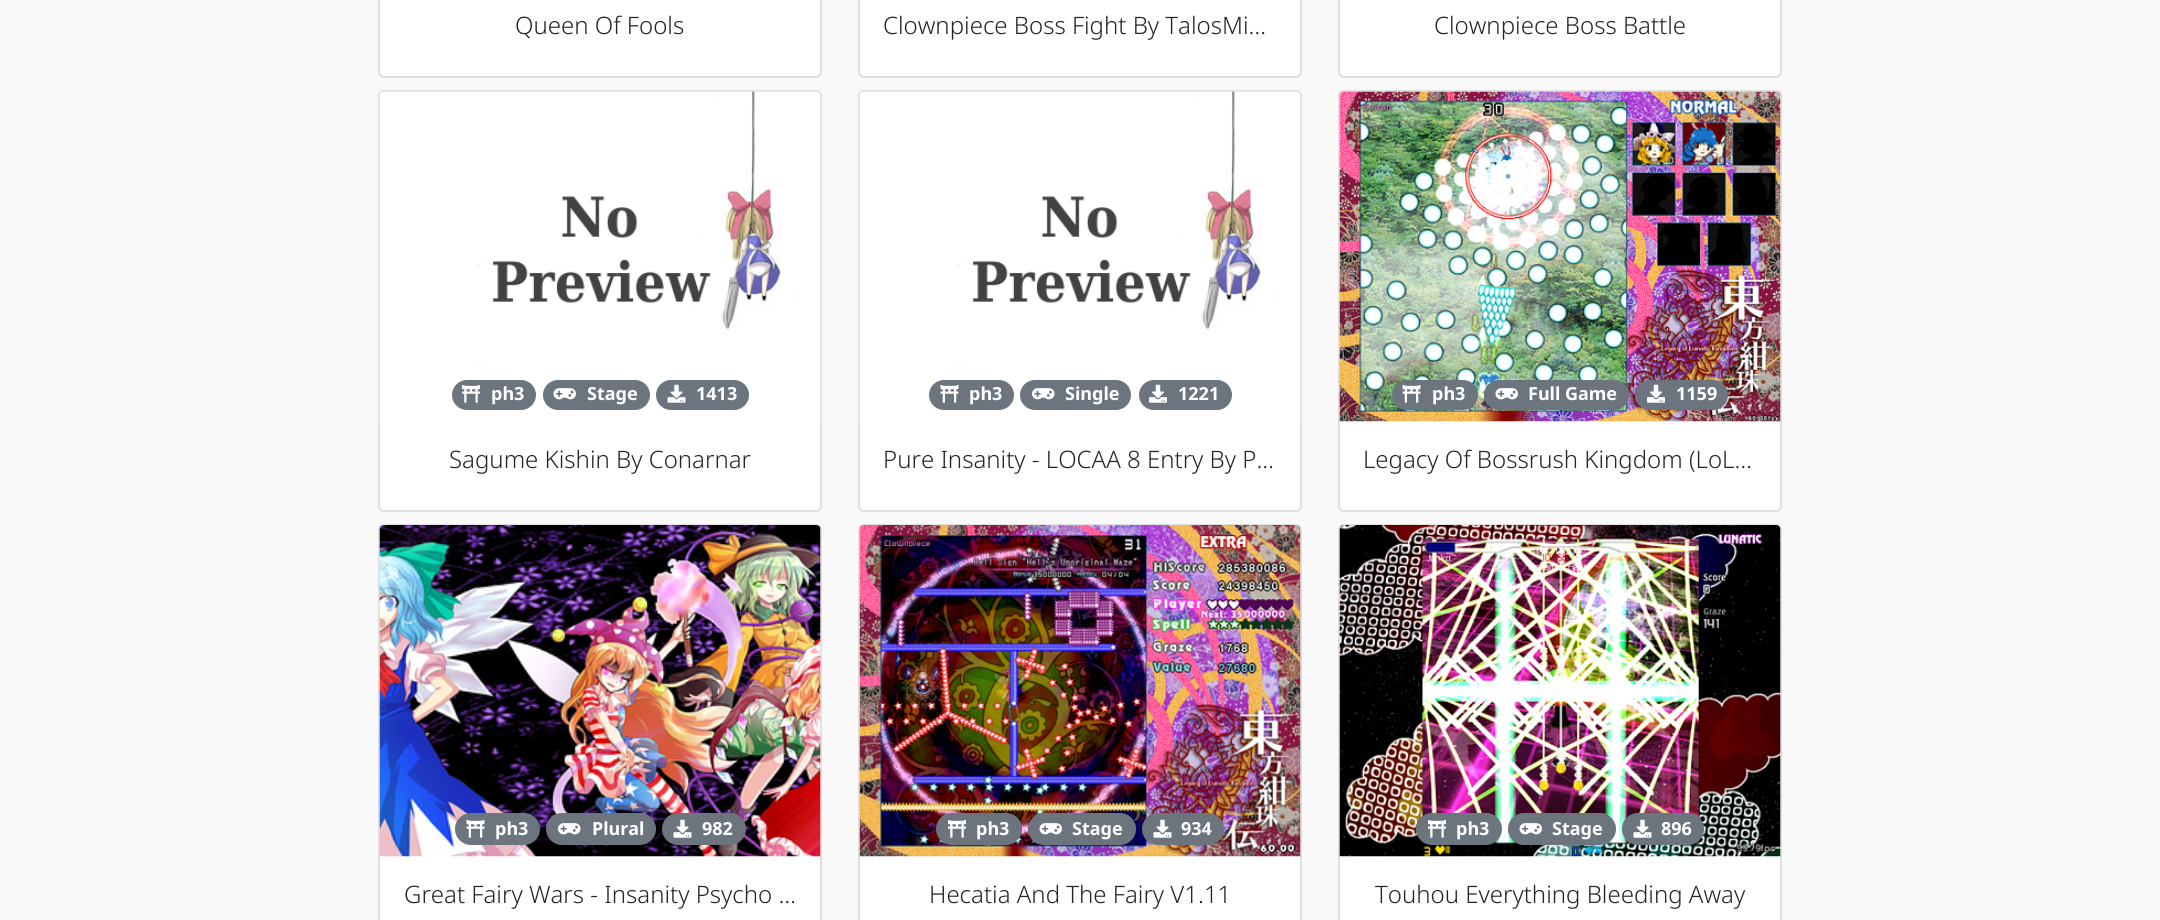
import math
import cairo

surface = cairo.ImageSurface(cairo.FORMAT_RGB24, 2160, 920)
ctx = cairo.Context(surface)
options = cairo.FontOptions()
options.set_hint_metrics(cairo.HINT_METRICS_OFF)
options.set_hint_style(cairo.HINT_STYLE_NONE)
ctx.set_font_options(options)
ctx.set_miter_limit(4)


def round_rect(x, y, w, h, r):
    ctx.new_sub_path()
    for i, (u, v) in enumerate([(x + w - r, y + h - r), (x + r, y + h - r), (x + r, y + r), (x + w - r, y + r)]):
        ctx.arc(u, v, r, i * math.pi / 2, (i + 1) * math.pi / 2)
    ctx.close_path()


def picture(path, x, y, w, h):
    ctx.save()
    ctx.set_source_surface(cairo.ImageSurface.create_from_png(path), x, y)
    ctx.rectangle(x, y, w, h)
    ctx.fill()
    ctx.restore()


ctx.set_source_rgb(0.973, 0.976, 0.98)
ctx.paint()
ctx.set_source_rgb(1, 1, 1)
round_rect(379, -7, 442, 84, 5)
ctx.fill_preserve()
ctx.set_source_rgb(0.875, 0.875, 0.875)
ctx.stroke()
ctx.select_font_face("Noto Sans Light")
ctx.set_font_size(24)
ctx.set_source_rgb(0.129, 0.145, 0.161)
ctx.move_to(515, 34)
ctx.show_text("Queen Of Fools")
ctx.set_source_rgb(1, 1, 1)
round_rect(859, -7, 442, 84, 5)
ctx.fill_preserve()
ctx.set_source_rgb(0.875, 0.875, 0.875)
ctx.stroke()
ctx.set_source_rgb(0.129, 0.145, 0.161)
ctx.move_to(883, 34)
ctx.show_text("Clownpiece Boss Fight By TalosMi…")
ctx.set_source_rgb(1, 1, 1)
round_rect(1339, -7, 442, 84, 5)
ctx.fill_preserve()
ctx.set_source_rgb(0.875, 0.875, 0.875)
ctx.stroke()
ctx.set_source_rgb(0.129, 0.145, 0.161)
ctx.move_to(1434, 34)
ctx.show_text("Clownpiece Boss Battle")
ctx.set_source_rgb(1, 1, 1)
round_rect(379, 91, 442, 420, 5)
ctx.fill_preserve()
ctx.set_source_rgb(0.875, 0.875, 0.875)
ctx.stroke()
picture("img1.png", 379, 91, 442, 330)
ctx.set_source_rgb(0.424, 0.459, 0.49)
round_rect(452, 380, 84, 30, 15)
ctx.fill()
picture("img2.png", 462, 384, 18, 19)
ctx.select_font_face("Noto Sans", cairo.FONT_SLANT_NORMAL, cairo.FONT_WEIGHT_BOLD)
ctx.set_font_size(18)
ctx.set_source_rgb(1, 1, 1)
ctx.move_to(491, 400)
ctx.show_text("ph3")
ctx.set_source_rgb(0.424, 0.459, 0.49)
round_rect(543, 380, 107, 30, 15)
ctx.fill()
picture("img3.png", 553, 388, 23, 12)
ctx.set_source_rgb(1, 1, 1)
ctx.move_to(587, 400)
ctx.show_text("Stage")
ctx.set_source_rgb(0.424, 0.459, 0.49)
round_rect(656, 380, 93, 30, 15)
ctx.fill()
picture("img4.png", 667, 384, 19, 19)
ctx.set_source_rgb(1, 1, 1)
ctx.move_to(696, 400)
ctx.show_text("1413")
ctx.select_font_face("Noto Sans Light")
ctx.set_font_size(24)
ctx.set_source_rgb(0.129, 0.145, 0.161)
ctx.move_to(449, 468)
ctx.show_text("Sagume Kishin By Conarnar")
ctx.set_source_rgb(1, 1, 1)
round_rect(859, 91, 442, 420, 5)
ctx.fill_preserve()
ctx.set_source_rgb(0.875, 0.875, 0.875)
ctx.stroke()
picture("img1.png", 859, 91, 442, 330)
ctx.set_source_rgb(0.424, 0.459, 0.49)
round_rect(929, 380, 85, 30, 15)
ctx.fill()
picture("img5.png", 940, 384, 19, 19)
ctx.select_font_face("Noto Sans", cairo.FONT_SLANT_NORMAL, cairo.FONT_WEIGHT_BOLD)
ctx.set_font_size(18)
ctx.set_source_rgb(1, 1, 1)
ctx.move_to(969, 400)
ctx.show_text("ph3")
ctx.set_source_rgb(0.424, 0.459, 0.49)
round_rect(1020, 380, 111, 30, 15)
ctx.fill()
picture("img6.png", 1032, 388, 23, 12)
ctx.set_source_rgb(1, 1, 1)
ctx.move_to(1065, 400)
ctx.show_text("Single")
ctx.set_source_rgb(0.424, 0.459, 0.49)
round_rect(1139, 380, 93, 30, 15)
ctx.fill()
picture("img7.png", 1149, 384, 18, 19)
ctx.set_source_rgb(1, 1, 1)
ctx.move_to(1178, 400)
ctx.show_text("1221")
ctx.select_font_face("Noto Sans Light")
ctx.set_font_size(24)
ctx.set_source_rgb(0.129, 0.145, 0.161)
ctx.move_to(883, 468)
ctx.show_text("Pure Insanity - LOCAA 8 Entry By P…")
ctx.set_source_rgb(1, 1, 1)
round_rect(1339, 91, 442, 420, 5)
ctx.fill_preserve()
ctx.set_source_rgb(0.875, 0.875, 0.875)
ctx.stroke()
picture("img8.png", 1339, 91, 442, 331)
ctx.set_source_rgb(0.424, 0.459, 0.49)
round_rect(1392, 380, 86, 30, 15)
ctx.fill()
picture("img5.png", 1402, 384, 19, 19)
ctx.select_font_face("Noto Sans", cairo.FONT_SLANT_NORMAL, cairo.FONT_WEIGHT_BOLD)
ctx.set_font_size(18)
ctx.set_source_rgb(1, 1, 1)
ctx.move_to(1432, 400)
ctx.show_text("ph3")
ctx.set_source_rgb(0.424, 0.459, 0.49)
round_rect(1484, 380, 145, 30, 15)
ctx.fill()
picture("img3.png", 1495, 388, 23, 12)
ctx.set_source_rgb(1, 1, 1)
ctx.move_to(1528, 400)
ctx.show_text("Full Game")
ctx.set_source_rgb(0.424, 0.459, 0.49)
round_rect(1635, 380, 93, 30, 15)
ctx.fill()
picture("img7.png", 1647, 384, 18, 19)
ctx.set_source_rgb(1, 1, 1)
ctx.move_to(1676, 400)
ctx.show_text("1159")
ctx.select_font_face("Noto Sans Light")
ctx.set_font_size(24)
ctx.set_source_rgb(0.129, 0.145, 0.161)
ctx.move_to(1363, 468)
ctx.show_text("Legacy Of Bossrush Kingdom (LoL…")
ctx.set_source_rgb(1, 1, 1)
round_rect(379, 525, 442, 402, 5)
ctx.fill_preserve()
ctx.set_source_rgb(0.875, 0.875, 0.875)
ctx.stroke()
picture("img9.png", 379, 525, 442, 332)
ctx.set_source_rgb(0.424, 0.459, 0.49)
round_rect(455, 813, 85, 32, 16)
ctx.fill()
picture("img5.png", 466, 819, 19, 19)
ctx.select_font_face("Noto Sans", cairo.FONT_SLANT_NORMAL, cairo.FONT_WEIGHT_BOLD)
ctx.set_font_size(18)
ctx.set_source_rgb(1, 1, 1)
ctx.move_to(495, 835)
ctx.show_text("ph3")
ctx.set_source_rgb(0.424, 0.459, 0.49)
round_rect(546, 813, 110, 32, 16)
ctx.fill()
picture("img6.png", 558, 823, 23, 12)
ctx.set_source_rgb(1, 1, 1)
ctx.move_to(592, 835)
ctx.show_text("Plural")
ctx.set_source_rgb(0.424, 0.459, 0.49)
round_rect(662, 813, 84, 32, 16)
ctx.fill()
picture("img4.png", 673, 819, 19, 19)
ctx.set_source_rgb(1, 1, 1)
ctx.move_to(702, 835)
ctx.show_text("982")
ctx.select_font_face("Noto Sans Light")
ctx.set_font_size(24)
ctx.set_source_rgb(0.129, 0.145, 0.161)
ctx.move_to(404, 903)
ctx.show_text("Great Fairy Wars - Insanity Psycho …")
ctx.set_source_rgb(1, 1, 1)
round_rect(859, 525, 442, 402, 5)
ctx.fill_preserve()
ctx.set_source_rgb(0.875, 0.875, 0.875)
ctx.stroke()
picture("img10.png", 859, 525, 442, 332)
ctx.set_source_rgb(0.424, 0.459, 0.49)
round_rect(936, 813, 86, 32, 16)
ctx.fill()
picture("img2.png", 948, 819, 18, 19)
ctx.select_font_face("Noto Sans", cairo.FONT_SLANT_NORMAL, cairo.FONT_WEIGHT_BOLD)
ctx.set_font_size(18)
ctx.set_source_rgb(1, 1, 1)
ctx.move_to(976, 835)
ctx.show_text("ph3")
ctx.set_source_rgb(0.424, 0.459, 0.49)
round_rect(1028, 813, 108, 32, 16)
ctx.fill()
picture("img3.png", 1039, 823, 23, 12)
ctx.set_source_rgb(1, 1, 1)
ctx.move_to(1072, 835)
ctx.show_text("Stage")
ctx.set_source_rgb(0.424, 0.459, 0.49)
round_rect(1142, 813, 82, 32, 16)
ctx.fill()
picture("img4.png", 1153, 819, 19, 19)
ctx.set_source_rgb(1, 1, 1)
ctx.move_to(1181, 835)
ctx.show_text("934")
ctx.select_font_face("Noto Sans Light")
ctx.set_font_size(24)
ctx.set_source_rgb(0.129, 0.145, 0.161)
ctx.move_to(929, 903)
ctx.show_text("Hecatia And The Fairy V1.11")
ctx.set_source_rgb(1, 1, 1)
round_rect(1339, 525, 442, 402, 5)
ctx.fill_preserve()
ctx.set_source_rgb(0.875, 0.875, 0.875)
ctx.stroke()
picture("img11.png", 1339, 525, 442, 332)
ctx.set_source_rgb(0.424, 0.459, 0.49)
round_rect(1416, 813, 86, 32, 16)
ctx.fill()
picture("img2.png", 1428, 819, 18, 19)
ctx.select_font_face("Noto Sans", cairo.FONT_SLANT_NORMAL, cairo.FONT_WEIGHT_BOLD)
ctx.set_font_size(18)
ctx.set_source_rgb(1, 1, 1)
ctx.move_to(1456, 835)
ctx.show_text("ph3")
ctx.set_source_rgb(0.424, 0.459, 0.49)
round_rect(1508, 813, 108, 32, 16)
ctx.fill()
picture("img3.png", 1519, 823, 23, 12)
ctx.set_source_rgb(1, 1, 1)
ctx.move_to(1552, 835)
ctx.show_text("Stage")
ctx.set_source_rgb(0.424, 0.459, 0.49)
round_rect(1622, 813, 82, 32, 16)
ctx.fill()
picture("img4.png", 1633, 819, 19, 19)
ctx.set_source_rgb(1, 1, 1)
ctx.move_to(1661, 835)
ctx.show_text("896")
ctx.select_font_face("Noto Sans Light")
ctx.set_font_size(24)
ctx.set_source_rgb(0.129, 0.145, 0.161)
ctx.move_to(1375, 903)
ctx.show_text("Touhou Everything Bleeding Away")
surface.write_to_png("page.png")
